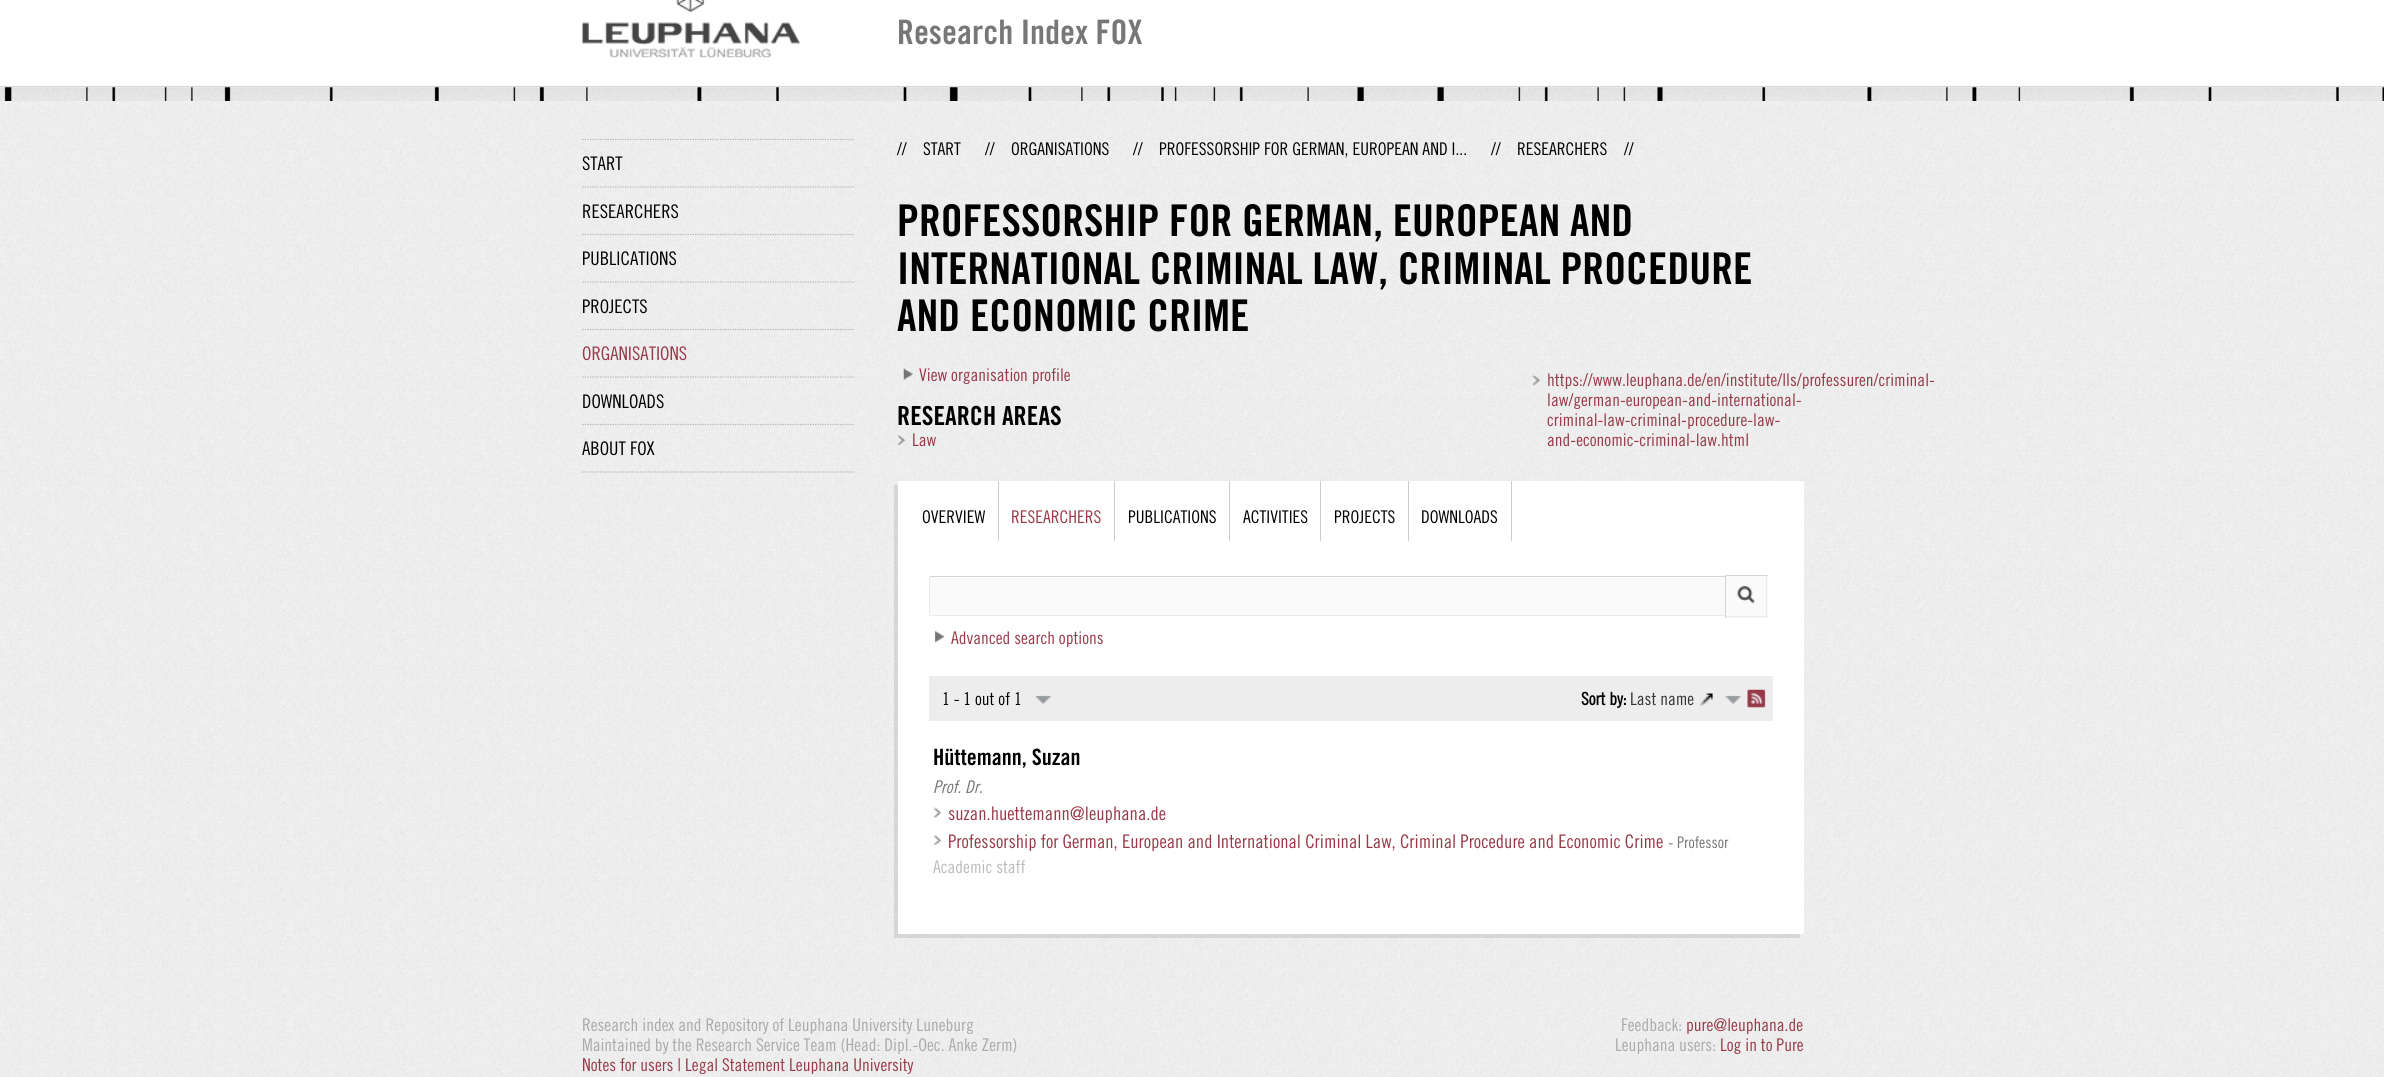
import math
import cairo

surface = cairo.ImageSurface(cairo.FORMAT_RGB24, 2384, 1077)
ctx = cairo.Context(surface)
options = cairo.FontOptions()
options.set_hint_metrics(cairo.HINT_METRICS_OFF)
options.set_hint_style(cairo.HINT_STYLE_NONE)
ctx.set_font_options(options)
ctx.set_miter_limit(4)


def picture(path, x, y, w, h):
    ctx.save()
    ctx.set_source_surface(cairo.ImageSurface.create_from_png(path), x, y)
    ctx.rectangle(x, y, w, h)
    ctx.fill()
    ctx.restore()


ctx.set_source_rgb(1, 1, 1)
ctx.paint()
picture("img1.png", 0, 101, 2384, 976)
ctx.set_source_rgb(0.839, 0.839, 0.839)
ctx.rectangle(0, 86, 2384, 1)
ctx.fill()
picture("img2.png", 582, 0, 218, 58)
ctx.select_font_face("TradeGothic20", cairo.FONT_SLANT_NORMAL, cairo.FONT_WEIGHT_BOLD)
ctx.set_font_size(33.75)
ctx.set_source_rgb(0.467, 0.467, 0.467)
ctx.move_to(897, 44)
ctx.show_text("Research Index FOX")
picture("img3.png", 0, 87, 2384, 14)
ctx.new_path()
ctx.move_to(582.5, 472)
ctx.line_to(854, 472)
ctx.set_source_rgb(0.71, 0.71, 0.71)
ctx.set_line_width(1.2)
ctx.set_dash([1.25, 1.25])
ctx.stroke()
ctx.new_path()
ctx.move_to(582.5, 139.5)
ctx.line_to(854, 139.5)
ctx.stroke()
ctx.select_font_face("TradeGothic")
ctx.set_font_size(18.75)
ctx.set_source_rgb(0, 0, 0)
ctx.move_to(582, 170)
ctx.show_text("START")
ctx.new_path()
ctx.move_to(582.5, 187)
ctx.line_to(854, 187)
ctx.set_source_rgb(0.71, 0.71, 0.71)
ctx.stroke()
ctx.set_source_rgb(0, 0, 0)
ctx.move_to(582, 218)
ctx.show_text("RESEARCHERS")
ctx.new_path()
ctx.move_to(582.5, 234.5)
ctx.line_to(854, 234.5)
ctx.set_source_rgb(0.71, 0.71, 0.71)
ctx.stroke()
ctx.set_source_rgb(0, 0, 0)
ctx.move_to(582, 265)
ctx.show_text("PUBLICATIONS")
ctx.new_path()
ctx.move_to(582.5, 282)
ctx.line_to(854, 282)
ctx.set_source_rgb(0.71, 0.71, 0.71)
ctx.stroke()
ctx.set_source_rgb(0, 0, 0)
ctx.move_to(582, 313)
ctx.show_text("PROJECTS")
ctx.new_path()
ctx.move_to(582.5, 329.5)
ctx.line_to(854, 329.5)
ctx.set_source_rgb(0.71, 0.71, 0.71)
ctx.stroke()
ctx.set_source_rgb(0.592, 0.224, 0.282)
ctx.move_to(582, 360)
ctx.show_text("ORGANISATIONS")
ctx.new_path()
ctx.move_to(582.5, 377)
ctx.line_to(854, 377)
ctx.set_source_rgb(0.71, 0.71, 0.71)
ctx.stroke()
ctx.set_source_rgb(0, 0, 0)
ctx.move_to(582, 408)
ctx.show_text("DOWNLOADS")
ctx.new_path()
ctx.move_to(582.5, 424.5)
ctx.line_to(854, 424.5)
ctx.set_source_rgb(0.71, 0.71, 0.71)
ctx.stroke()
ctx.set_source_rgb(0, 0, 0)
ctx.move_to(582, 455)
ctx.show_text("ABOUT FOX")
ctx.set_font_size(17.5)
ctx.move_to(897, 155)
ctx.show_text("//")
ctx.move_to(923, 155)
ctx.show_text("START")
ctx.move_to(985, 155)
ctx.show_text("//")
ctx.move_to(1011, 155)
ctx.show_text("ORGANISATIONS")
ctx.move_to(1133, 155)
ctx.show_text("//")
ctx.move_to(1159, 155)
ctx.show_text("PROFESSORSHIP FOR GERMAN, EUROPEAN AND I...")
ctx.move_to(1491, 155)
ctx.show_text("//")
ctx.move_to(1517, 155)
ctx.show_text("RESEARCHERS")
ctx.move_to(1624, 155)
ctx.show_text("//")
ctx.select_font_face("TradeGothic20", cairo.FONT_SLANT_NORMAL, cairo.FONT_WEIGHT_BOLD)
ctx.set_font_size(43.75)
ctx.move_to(897, 236)
ctx.show_text("PROFESSORSHIP FOR GERMAN, EUROPEAN AND")
ctx.move_to(897, 284)
ctx.show_text("INTERNATIONAL CRIMINAL LAW, CRIMINAL PROCEDURE")
ctx.move_to(897, 331)
ctx.show_text("AND ECONOMIC CRIME")
picture("img4.png", 903, 368, 10, 12)
ctx.select_font_face("TradeGothic")
ctx.set_font_size(17.5)
ctx.set_source_rgb(0.592, 0.224, 0.282)
ctx.move_to(919, 381)
ctx.show_text("View organisation profile")
ctx.select_font_face("TradeGothic20", cairo.FONT_SLANT_NORMAL, cairo.FONT_WEIGHT_BOLD)
ctx.set_font_size(26.25)
ctx.set_source_rgb(0, 0, 0)
ctx.move_to(897, 425)
ctx.show_text("RESEARCH AREAS")
picture("img5.png", 897, 434, 8, 12)
ctx.select_font_face("TradeGothic")
ctx.set_font_size(17.5)
ctx.set_source_rgb(0.592, 0.224, 0.282)
ctx.move_to(912, 446)
ctx.show_text("Law")
picture("img6.png", 1532, 374, 8, 12)
ctx.move_to(1547, 386)
ctx.show_text("https://www.leuphana.de/en/institute/lls/professuren/criminal-")
ctx.move_to(1547, 406)
ctx.show_text("law/german-european-and-international-")
ctx.move_to(1547, 426)
ctx.show_text("criminal-law-criminal-procedure-law-")
ctx.move_to(1547, 446)
ctx.show_text("and-economic-criminal-law.html")
ctx.set_source_rgba(0, 0, 0, 0.1)
ctx.new_path()
ctx.move_to(894, 485)
ctx.line_to(894, 938)
ctx.line_to(1800, 938)
ctx.line_to(1800, 934)
ctx.line_to(898, 934)
ctx.line_to(898, 485)
ctx.close_path()
ctx.fill()
ctx.set_source_rgb(1, 1, 1)
ctx.rectangle(898, 481, 906, 453)
ctx.fill()
ctx.set_source_rgb(0.804, 0.804, 0.804)
ctx.rectangle(998, 481, 1, 60)
ctx.fill()
ctx.set_source_rgb(0, 0, 0)
ctx.move_to(922, 523)
ctx.show_text("OVERVIEW")
ctx.set_source_rgb(0.804, 0.804, 0.804)
ctx.rectangle(1114, 481, 1, 60)
ctx.fill()
ctx.set_source_rgb(0.592, 0.224, 0.282)
ctx.move_to(1011, 523)
ctx.show_text("RESEARCHERS")
ctx.set_source_rgb(0.804, 0.804, 0.804)
ctx.rectangle(1229, 481, 1, 60)
ctx.fill()
ctx.set_source_rgb(0, 0, 0)
ctx.move_to(1128, 523)
ctx.show_text("PUBLICATIONS")
ctx.set_source_rgb(0.804, 0.804, 0.804)
ctx.rectangle(1320, 481, 1, 60)
ctx.fill()
ctx.set_source_rgb(0, 0, 0)
ctx.move_to(1243, 523)
ctx.show_text("ACTIVITIES")
ctx.set_source_rgb(0.804, 0.804, 0.804)
ctx.rectangle(1408, 481, 1, 60)
ctx.fill()
ctx.set_source_rgb(0, 0, 0)
ctx.move_to(1334, 523)
ctx.show_text("PROJECTS")
ctx.set_source_rgb(0.804, 0.804, 0.804)
ctx.rectangle(1511, 481, 1, 60)
ctx.fill()
ctx.set_source_rgb(0, 0, 0)
ctx.move_to(1421, 523)
ctx.show_text("DOWNLOADS")
ctx.set_source_rgb(0.98, 0.98, 0.98)
ctx.rectangle(930, 577, 795, 38)
ctx.fill()
ctx.set_source_rgb(0.835, 0.835, 0.835)
ctx.rectangle(929, 576, 801, 1)
ctx.fill()
ctx.set_source_rgb(0.922, 0.922, 0.922)
ctx.rectangle(929, 615, 801, 1)
ctx.fill()
ctx.rectangle(929, 576, 1, 40)
ctx.fill()
ctx.set_source_rgb(0.98, 0.98, 0.98)
ctx.rectangle(1726, 576, 42, 42)
ctx.fill()
ctx.set_source_rgb(0.835, 0.835, 0.835)
ctx.rectangle(1725, 575, 43, 1)
ctx.fill()
ctx.set_source_rgb(0.922, 0.922, 0.922)
ctx.rectangle(1766, 575, 1, 43)
ctx.fill()
ctx.rectangle(1725, 616, 43, 1)
ctx.fill()
ctx.set_source_rgb(0.835, 0.835, 0.835)
ctx.rectangle(1725, 575, 1, 43)
ctx.fill()
picture("img7.png", 1737, 586, 18, 18)
picture("img8.png", 934, 630, 11, 13)
ctx.set_source_rgb(0.592, 0.224, 0.282)
ctx.move_to(951, 644)
ctx.show_text("Advanced search options")
ctx.set_source_rgb(0.929, 0.929, 0.929)
ctx.rectangle(929, 676, 844, 45)
ctx.fill()
picture("img9.png", 1035, 695, 17, 10)
ctx.set_source_rgb(0, 0, 0)
ctx.move_to(942, 705)
ctx.show_text("1 - 1 out of 1")
picture("img10.png", 1725, 695, 17, 10)
ctx.select_font_face("TradeGothic", cairo.FONT_SLANT_NORMAL, cairo.FONT_WEIGHT_BOLD)
ctx.move_to(1581, 705)
ctx.show_text("Sort by:")
ctx.select_font_face("TradeGothic")
ctx.set_source_rgb(0.2, 0.2, 0.2)
ctx.move_to(1630, 705)
ctx.show_text("Last name")
picture("img11.png", 1700, 693, 13, 13)
picture("img12.png", 1747, 689, 19, 19)
ctx.select_font_face("TradeGothic20", cairo.FONT_SLANT_NORMAL, cairo.FONT_WEIGHT_BOLD)
ctx.set_font_size(22.5)
ctx.set_source_rgb(0, 0, 0)
ctx.move_to(933, 765)
ctx.show_text("Hüttemann, Suzan")
ctx.select_font_face("TradeGothic", cairo.FONT_SLANT_ITALIC)
ctx.set_font_size(17.5)
ctx.set_source_rgb(0.467, 0.467, 0.467)
ctx.move_to(933, 793)
ctx.show_text("Prof. Dr.")
picture("img13.png", 933, 807, 9, 12)
ctx.select_font_face("TradeGothic")
ctx.set_font_size(18.75)
ctx.set_source_rgb(0.592, 0.224, 0.282)
ctx.move_to(948, 820)
ctx.show_text("suzan.huettemann@leuphana.de")
picture("img14.png", 933, 834, 9, 12)
ctx.save()
ctx.rectangle(934, 830, 834, 21)
ctx.clip()
ctx.move_to(948, 848)
ctx.show_text("Professorship for German, European and International Criminal Law, Criminal Procedure and Economic Crime")
ctx.restore()
ctx.set_font_size(16)
ctx.set_source_rgb(0.467, 0.467, 0.467)
ctx.move_to(1668, 848)
ctx.show_text("- Professor")
ctx.set_font_size(17.5)
ctx.set_source_rgb(0.733, 0.733, 0.733)
ctx.move_to(933, 873)
ctx.show_text("Academic staff")
ctx.set_source_rgb(0.667, 0.667, 0.667)
ctx.move_to(582, 1031)
ctx.show_text("Research index and Repository of Leuphana University Luneburg")
ctx.move_to(582, 1051)
ctx.show_text("Maintained by the Research Service Team (Head: Dipl.-Oec. Anke Zerm)")
ctx.set_source_rgb(0.592, 0.224, 0.282)
ctx.move_to(582, 1071)
ctx.show_text("Notes for users | Legal Statement Leuphana University")
ctx.set_source_rgb(0.667, 0.667, 0.667)
ctx.move_to(1621, 1031)
ctx.show_text("Feedback:")
ctx.set_source_rgb(0.592, 0.224, 0.282)
ctx.move_to(1686, 1031)
ctx.show_text("pure@leuphana.de")
ctx.set_source_rgb(0.667, 0.667, 0.667)
ctx.move_to(1615, 1051)
ctx.show_text("Leuphana users:")
ctx.set_source_rgb(0.592, 0.224, 0.282)
ctx.move_to(1720, 1051)
ctx.show_text("Log in to Pure")
surface.write_to_png("page.png")
